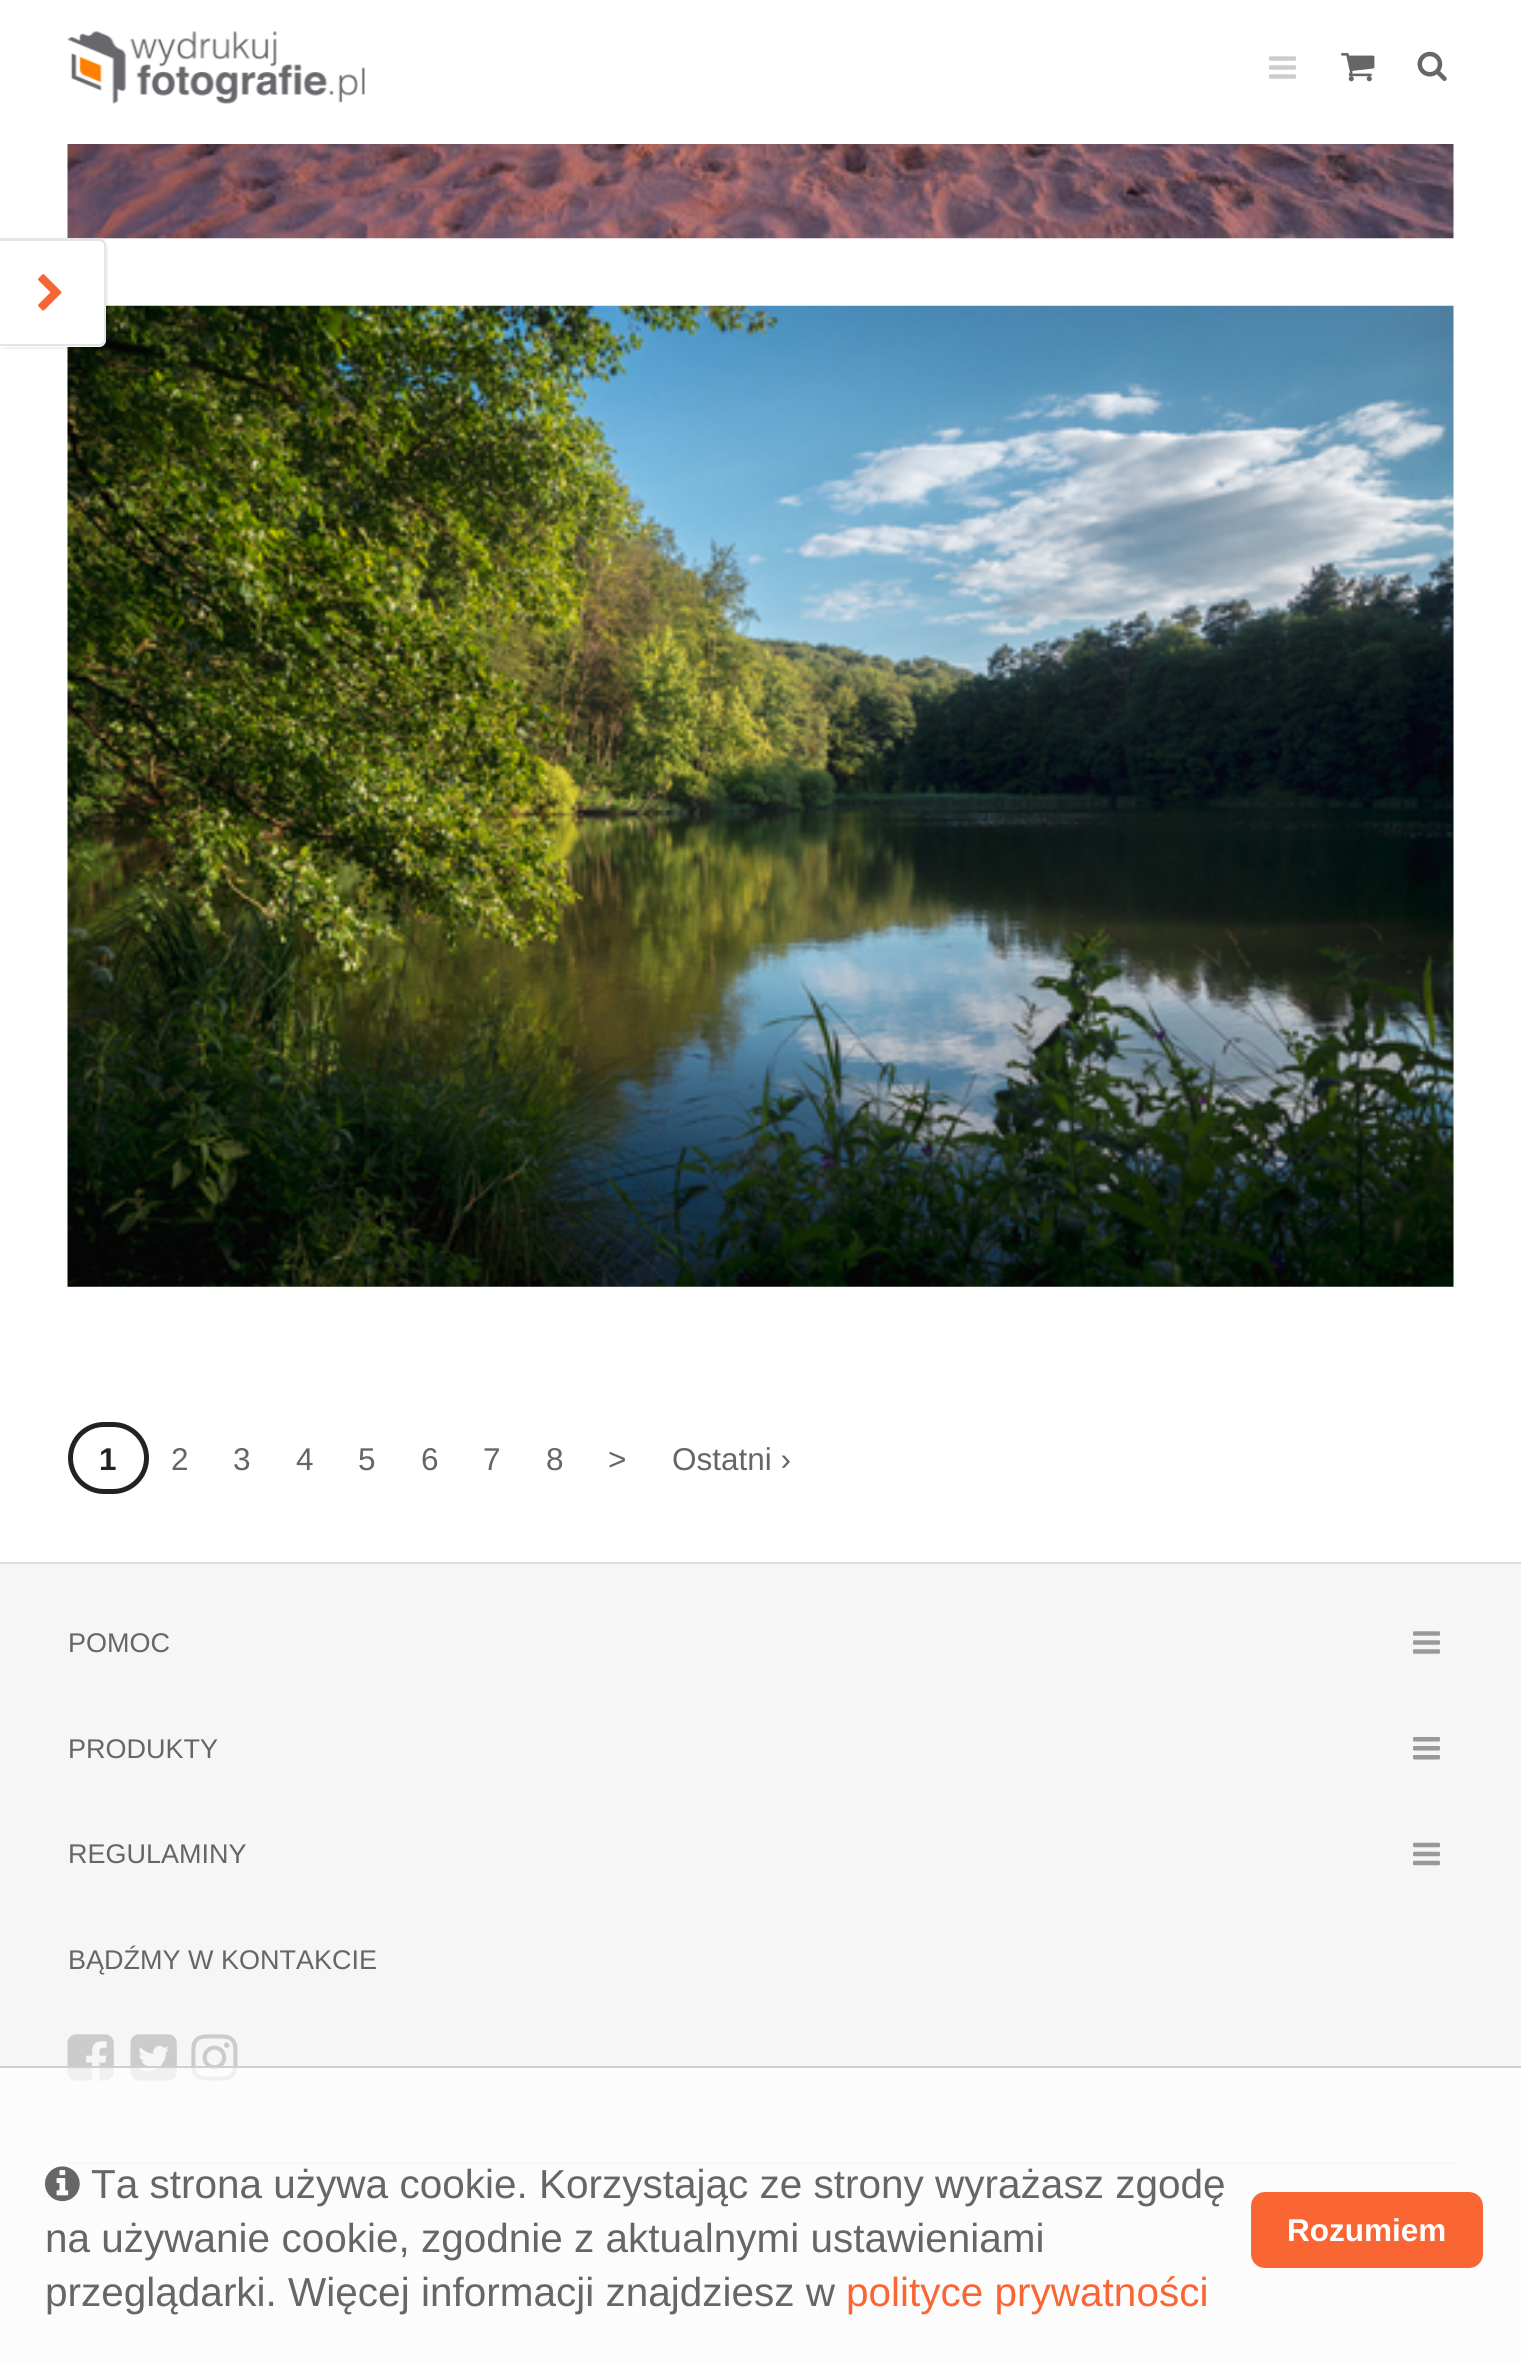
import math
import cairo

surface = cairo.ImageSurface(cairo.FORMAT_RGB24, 1521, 2363)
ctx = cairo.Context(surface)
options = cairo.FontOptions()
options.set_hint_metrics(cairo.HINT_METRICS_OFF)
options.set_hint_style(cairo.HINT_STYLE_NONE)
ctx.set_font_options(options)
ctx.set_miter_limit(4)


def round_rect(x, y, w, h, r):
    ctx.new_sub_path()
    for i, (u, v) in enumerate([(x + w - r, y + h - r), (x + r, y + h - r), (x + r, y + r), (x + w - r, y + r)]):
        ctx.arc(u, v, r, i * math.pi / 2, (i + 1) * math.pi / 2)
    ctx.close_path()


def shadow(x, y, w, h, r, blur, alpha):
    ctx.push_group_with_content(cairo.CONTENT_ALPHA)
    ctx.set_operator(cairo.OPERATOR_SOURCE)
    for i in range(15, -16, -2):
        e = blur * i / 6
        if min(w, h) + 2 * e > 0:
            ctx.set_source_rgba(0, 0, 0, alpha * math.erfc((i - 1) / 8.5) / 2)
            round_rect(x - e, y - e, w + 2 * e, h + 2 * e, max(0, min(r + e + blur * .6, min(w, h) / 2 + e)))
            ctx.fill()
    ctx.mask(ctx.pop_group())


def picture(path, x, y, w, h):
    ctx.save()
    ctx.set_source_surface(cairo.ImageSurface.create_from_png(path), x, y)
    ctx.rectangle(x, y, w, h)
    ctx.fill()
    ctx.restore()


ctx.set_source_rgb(1, 1, 1)
ctx.paint()
picture("img1.png", 67, 31, 298, 73)
picture("img2.png", 1269, 56, 27, 23)
picture("img3.png", 1341, 53, 34, 29)
picture("img4.png", 1417, 51, 30, 30)
picture("img6.png", 67, 144, 1387, 95)
picture("img7.png", 67, 305, 1387, 982)
ctx.set_source_rgb(0, 0, 0)
shadow(0, 241, 108, 108, 7, 1, 0.07)
ctx.set_source_rgb(1, 1, 1)
ctx.new_path()
ctx.move_to(-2, 239)
ctx.line_to(99, 239)
ctx.curve_to(103, 239, 106, 242, 106, 246)
ctx.line_to(106, 340)
ctx.curve_to(106, 344, 103, 347, 99, 347)
ctx.line_to(-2, 347)
ctx.close_path()
ctx.fill()
ctx.set_source_rgb(0.898, 0.898, 0.898)
ctx.set_fill_rule(cairo.FILL_RULE_EVEN_ODD)
ctx.new_path()
ctx.move_to(-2, 238)
ctx.line_to(99, 238)
ctx.curve_to(103, 238, 106, 242, 106, 245)
ctx.line_to(106, 340)
ctx.curve_to(106, 343, 103, 346, 99, 346)
ctx.line_to(-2, 346)
ctx.close_path()
ctx.move_to(-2, 241)
ctx.line_to(99, 241)
ctx.curve_to(101, 241, 104, 243, 104, 245)
ctx.line_to(104, 340)
ctx.curve_to(104, 342, 101, 344, 99, 344)
ctx.line_to(-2, 344)
ctx.close_path()
ctx.fill()
picture("img5.png", 38, 274, 24, 37)
round_rect(70.5, 1424.5, 76, 67, 33.5)
ctx.set_source_rgb(0.133, 0.133, 0.133)
ctx.set_line_width(5)
ctx.stroke()
ctx.select_font_face("Liberation Sans", cairo.FONT_SLANT_NORMAL, cairo.FONT_WEIGHT_BOLD)
ctx.set_font_size(31.5)
ctx.move_to(99, 1470)
ctx.show_text("1")
ctx.select_font_face("Liberation Sans")
ctx.set_source_rgb(0.4, 0.4, 0.4)
ctx.move_to(171, 1470)
ctx.show_text("2")
ctx.move_to(233, 1470)
ctx.show_text("3")
ctx.move_to(296, 1470)
ctx.show_text("4")
ctx.move_to(358, 1470)
ctx.show_text("5")
ctx.move_to(421, 1470)
ctx.show_text("6")
ctx.move_to(483, 1470)
ctx.show_text("7")
ctx.move_to(546, 1470)
ctx.show_text("8")
ctx.move_to(608, 1470)
ctx.show_text(">")
ctx.move_to(672, 1470)
ctx.show_text("Ostatni ›")
ctx.set_source_rgb(0.961, 0.961, 0.961)
ctx.rectangle(0, 1564, 1521, 799)
ctx.fill()
ctx.set_source_rgb(0.867, 0.867, 0.867)
ctx.rectangle(0, 1562, 1521, 2)
ctx.fill()
ctx.set_font_size(27)
ctx.set_source_rgb(0.4, 0.4, 0.4)
ctx.move_to(68, 1652)
ctx.show_text("POMOC")
picture("img8.png", 1413, 1631, 27, 23)
ctx.move_to(68, 1758)
ctx.show_text("PRODUKTY")
picture("img9.png", 1413, 1737, 27, 23)
ctx.move_to(68, 1863)
ctx.show_text("REGULAMINY")
picture("img10.png", 1413, 1842, 27, 24)
ctx.move_to(68, 1969)
ctx.show_text("BĄDŹMY W KONTAKCIE")
picture("img11.png", 67, 2034, 47, 47)
picture("img12.png", 130, 2034, 47, 47)
picture("img13.png", 191, 2034, 47, 47)
ctx.set_source_rgb(0.898, 0.898, 0.898)
ctx.rectangle(68, 2162, 1386, 2)
ctx.fill()
ctx.set_source_rgba(1, 1, 1, 0.7)
ctx.rectangle(0, 2068, 1521, 295)
ctx.fill()
ctx.set_source_rgb(0.812, 0.812, 0.812)
ctx.rectangle(0, 2066, 1521, 2)
ctx.fill()
picture("img14.png", 45, 2166, 35, 36)
ctx.set_font_size(40.5)
ctx.set_source_rgb(0.4, 0.4, 0.4)
ctx.move_to(91, 2198)
ctx.show_text("Ta strona używa cookie. Korzystając ze strony wyrażasz zgodę")
ctx.move_to(45, 2252)
ctx.show_text("na używanie cookie, zgodnie z aktualnymi ustawieniami")
ctx.move_to(45, 2306)
ctx.show_text("przeglądarki. Więcej informacji znajdziesz w")
ctx.set_source_rgb(0.973, 0.4, 0.2)
ctx.move_to(846, 2306)
ctx.show_text("polityce prywatności")
round_rect(1251, 2192, 232, 76, 14)
ctx.fill()
ctx.select_font_face("Liberation Sans", cairo.FONT_SLANT_NORMAL, cairo.FONT_WEIGHT_BOLD)
ctx.set_font_size(31.5)
ctx.set_source_rgb(1, 1, 1)
ctx.move_to(1287, 2241)
ctx.show_text("Rozumiem")
surface.write_to_png("page.png")
